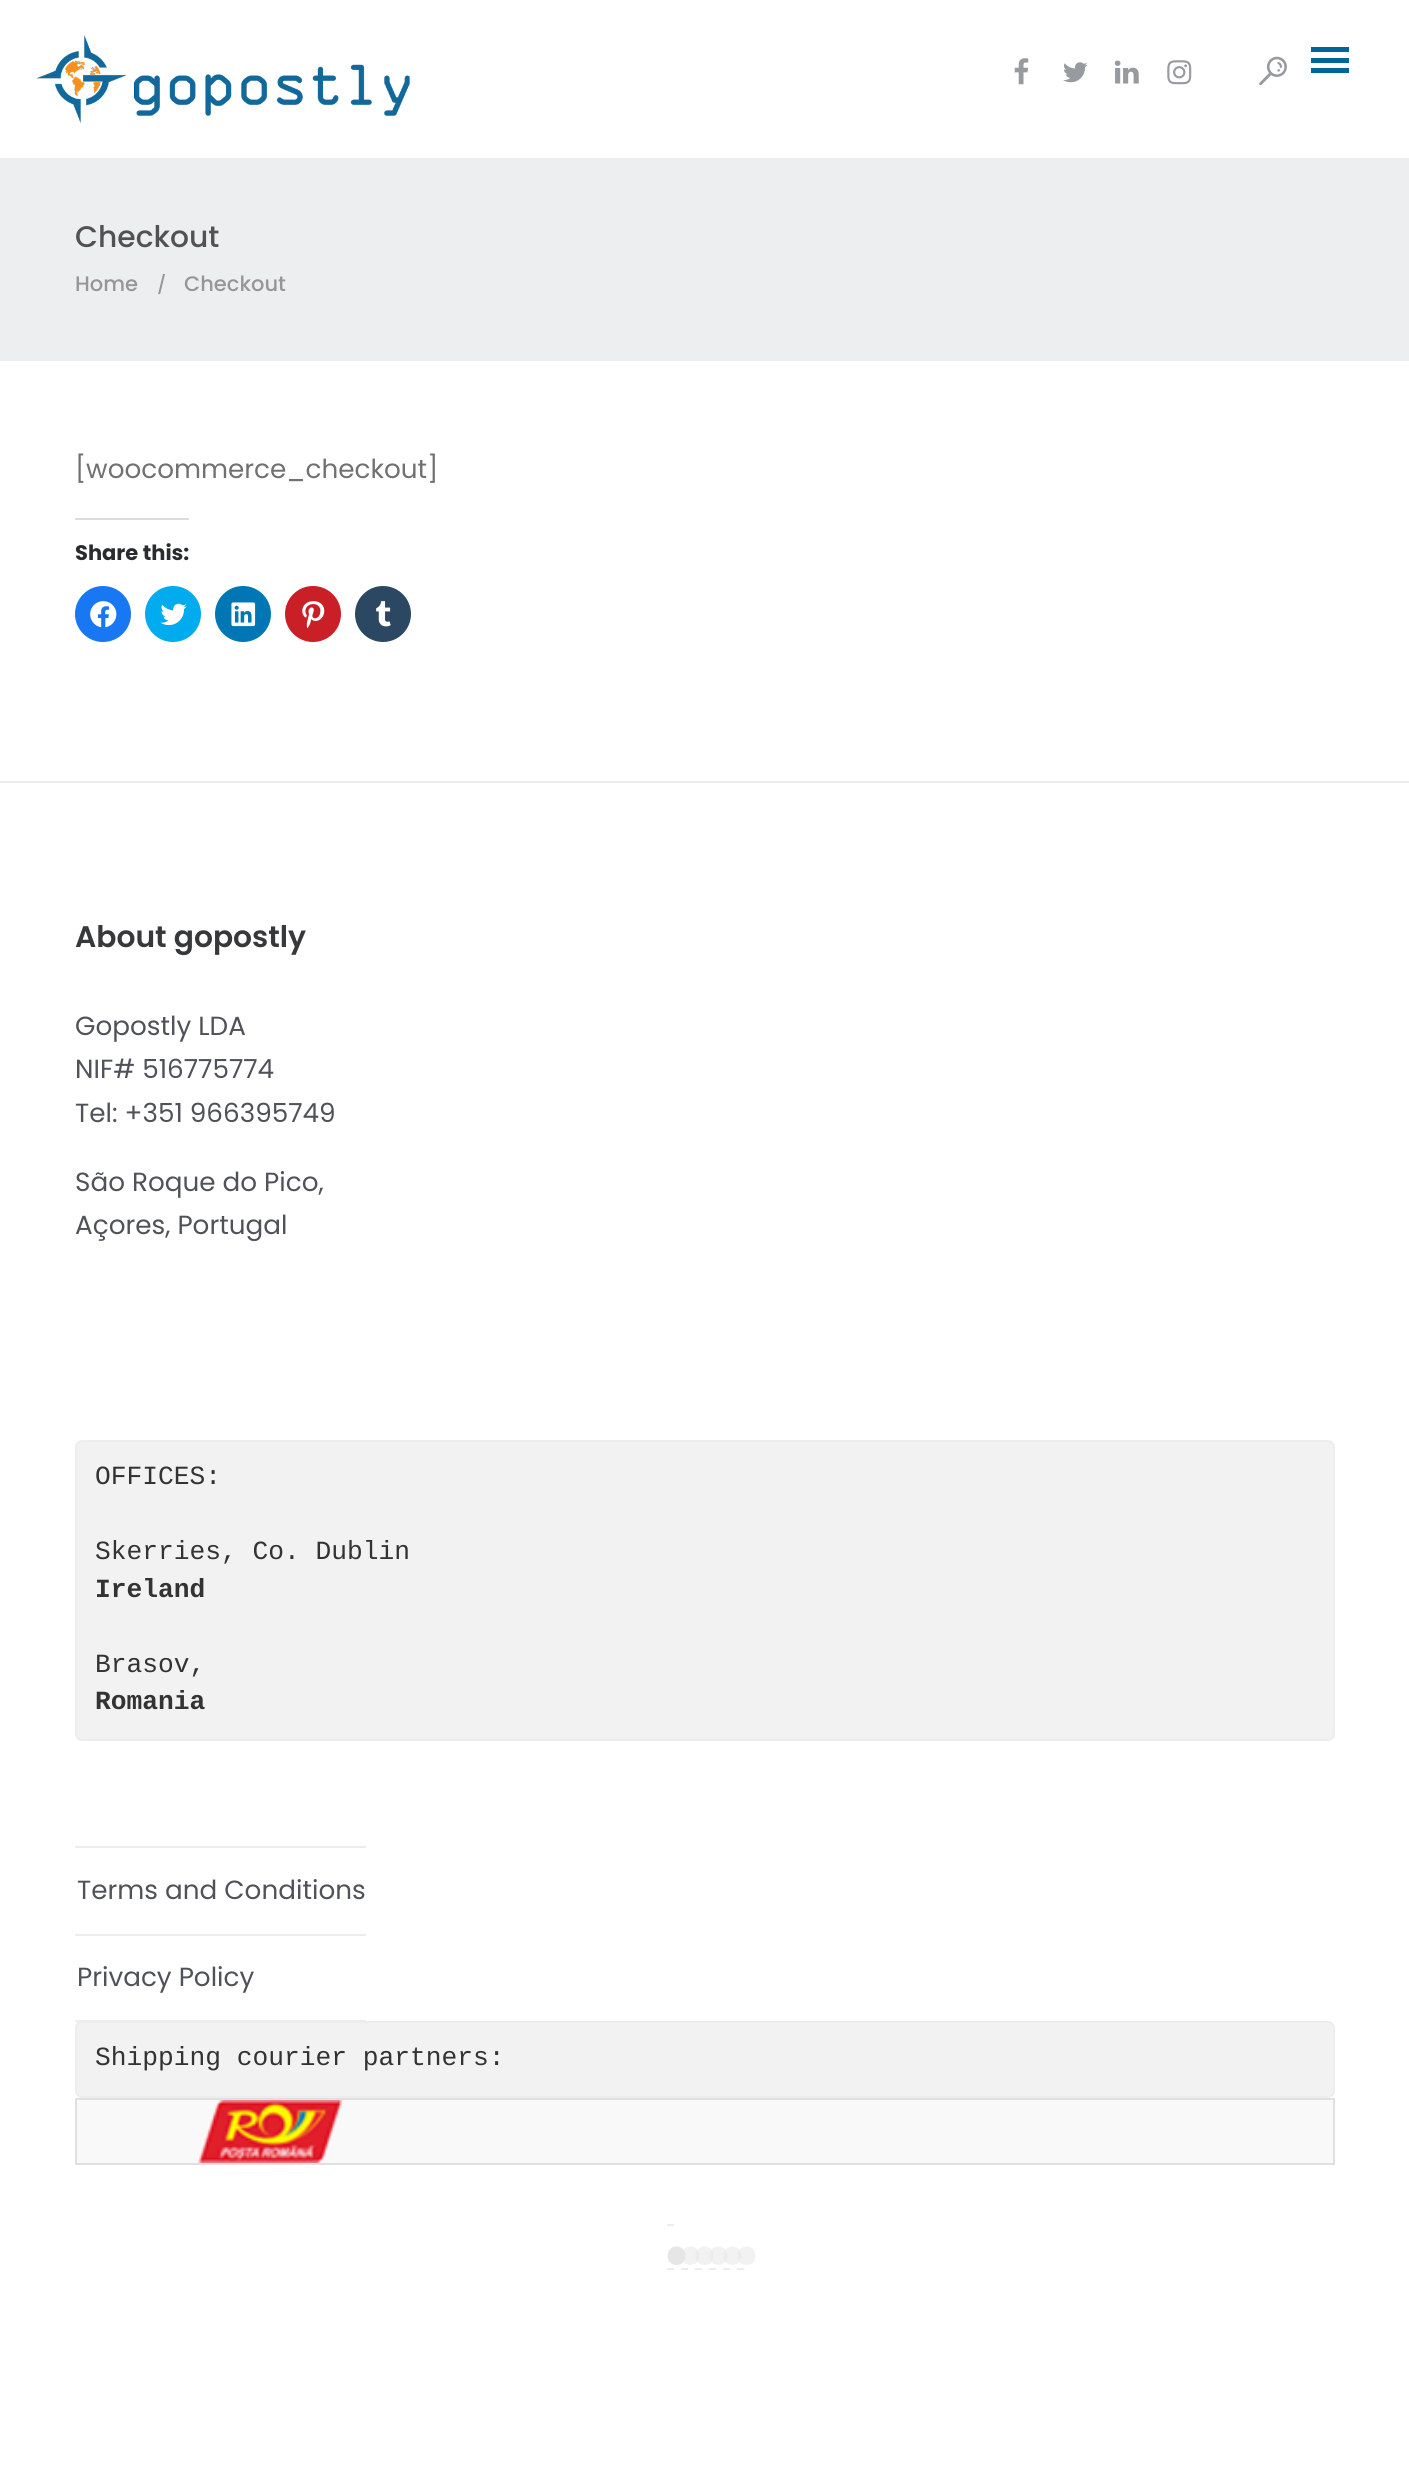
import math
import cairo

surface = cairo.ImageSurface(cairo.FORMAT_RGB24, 1409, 2469)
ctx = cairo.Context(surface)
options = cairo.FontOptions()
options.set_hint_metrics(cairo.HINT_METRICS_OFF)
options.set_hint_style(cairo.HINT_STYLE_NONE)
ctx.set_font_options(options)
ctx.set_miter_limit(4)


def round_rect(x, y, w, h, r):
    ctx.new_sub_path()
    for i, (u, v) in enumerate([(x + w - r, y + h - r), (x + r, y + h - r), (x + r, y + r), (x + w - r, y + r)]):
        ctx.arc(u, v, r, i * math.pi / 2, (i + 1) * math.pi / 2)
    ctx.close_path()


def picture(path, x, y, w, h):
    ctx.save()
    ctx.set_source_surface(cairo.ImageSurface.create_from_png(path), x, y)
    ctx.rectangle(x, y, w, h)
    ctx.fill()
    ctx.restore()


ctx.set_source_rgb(1, 1, 1)
ctx.paint()
picture("img1.png", 36, 35, 374, 88)
picture("img2.png", 1014, 58, 15, 27)
picture("img3.png", 1063, 62, 25, 21)
picture("img4.png", 1114, 60, 25, 24)
picture("img5.png", 1167, 60, 25, 25)
picture("img6.png", 1259, 56, 28, 30)
ctx.set_source_rgb(0, 0.4, 0.6)
ctx.rectangle(1311, 68, 38, 5)
ctx.fill()
ctx.rectangle(1311, 58, 38, 5)
ctx.fill()
ctx.rectangle(1311, 47, 38, 5)
ctx.fill()
ctx.set_source_rgb(0.929, 0.933, 0.937)
ctx.rectangle(0, 158, 1409, 203)
ctx.fill()
ctx.select_font_face("Poppins Medium")
ctx.set_font_size(29.75)
ctx.set_source_rgb(0.322, 0.322, 0.322)
ctx.move_to(75, 247)
ctx.show_text("Checkout")
ctx.set_font_size(21)
ctx.set_source_rgb(0.588, 0.588, 0.588)
ctx.move_to(75, 291)
ctx.show_text("Home")
ctx.set_font_size(18)
ctx.move_to(157, 291)
ctx.show_text("/")
ctx.set_font_size(21)
ctx.move_to(184, 291)
ctx.show_text("Checkout")
ctx.select_font_face("Poppins")
ctx.set_font_size(26.25)
ctx.set_source_rgb(0.439, 0.439, 0.439)
ctx.move_to(75, 478)
ctx.show_text("[woocommerce_checkout]")
ctx.set_source_rgb(0.863, 0.863, 0.871)
ctx.rectangle(75, 518, 114, 2)
ctx.fill()
ctx.select_font_face("Poppins", cairo.FONT_SLANT_NORMAL, cairo.FONT_WEIGHT_BOLD)
ctx.set_font_size(21)
ctx.set_source_rgb(0.161, 0.173, 0.184)
ctx.move_to(75, 560)
ctx.show_text("Share this:")
ctx.set_source_rgb(0.094, 0.467, 0.949)
ctx.new_path()
ctx.arc(103, 614, 28, 0, 2 * math.pi)
ctx.fill()
picture("img7.png", 90, 601, 27, 27)
ctx.set_source_rgb(0, 0.675, 0.933)
ctx.arc(173, 614, 28, 0, 2 * math.pi)
ctx.fill()
picture("img8.png", 160, 603, 27, 23)
ctx.set_source_rgb(0, 0.467, 0.71)
ctx.arc(243, 614, 28, 0, 2 * math.pi)
ctx.fill()
picture("img9.png", 231, 602, 25, 25)
ctx.set_source_rgb(0.792, 0.122, 0.153)
ctx.arc(313, 614, 28, 0, 2 * math.pi)
ctx.fill()
picture("img10.png", 302, 601, 23, 28)
ctx.set_source_rgb(0.173, 0.278, 0.384)
ctx.arc(383, 614, 28, 0, 2 * math.pi)
ctx.fill()
picture("img11.png", 376, 601, 15, 26)
ctx.set_source_rgb(0.918, 0.929, 0.937)
ctx.rectangle(0, 781, 1409, 2)
ctx.fill()
ctx.select_font_face("Poppins SemiBold")
ctx.set_font_size(29.75)
ctx.set_source_rgb(0.212, 0.22, 0.227)
ctx.move_to(75, 947)
ctx.show_text("About gopostly")
ctx.select_font_face("Poppins")
ctx.set_font_size(26.25)
ctx.set_source_rgb(0.31, 0.322, 0.345)
ctx.move_to(75, 1035)
ctx.show_text("Gopostly LDA")
ctx.move_to(75, 1078)
ctx.show_text("NIF# 516775774")
ctx.move_to(75, 1122)
ctx.show_text("Tel: +351 966395749")
ctx.move_to(75, 1191)
ctx.show_text("São Roque do Pico,")
ctx.move_to(75, 1234)
ctx.show_text("Açores, Portugal")
ctx.set_source_rgb(0.949, 0.949, 0.949)
round_rect(76, 1441, 1258, 299, 6)
ctx.fill_preserve()
ctx.set_source_rgb(0.929, 0.929, 0.929)
ctx.stroke()
ctx.select_font_face("Liberation Mono")
ctx.set_source_rgb(0.2, 0.2, 0.2)
ctx.move_to(95, 1484)
ctx.show_text("OFFICES:")
ctx.move_to(95, 1559)
ctx.show_text("Skerries, Co. Dublin")
ctx.select_font_face("Liberation Mono", cairo.FONT_SLANT_NORMAL, cairo.FONT_WEIGHT_BOLD)
ctx.move_to(95, 1597)
ctx.show_text("Ireland")
ctx.select_font_face("Liberation Mono")
ctx.move_to(95, 1672)
ctx.show_text("Brasov,")
ctx.select_font_face("Liberation Mono", cairo.FONT_SLANT_NORMAL, cairo.FONT_WEIGHT_BOLD)
ctx.move_to(95, 1709)
ctx.show_text("Romania")
ctx.set_source_rgb(0.918, 0.929, 0.937)
ctx.rectangle(75, 1846, 291, 2)
ctx.fill()
ctx.rectangle(75, 1934, 291, 2)
ctx.fill()
ctx.select_font_face("Poppins")
ctx.set_source_rgb(0.31, 0.322, 0.345)
ctx.move_to(77, 1899)
ctx.show_text("Terms and Conditions")
ctx.set_source_rgb(0.949, 0.949, 0.949)
round_rect(76, 2022, 1258, 75, 6)
ctx.fill_preserve()
ctx.set_source_rgb(0.929, 0.929, 0.929)
ctx.stroke()
ctx.set_source_rgb(0.918, 0.929, 0.937)
ctx.rectangle(75, 2020, 291, 2)
ctx.fill()
ctx.set_source_rgb(0.31, 0.322, 0.345)
ctx.move_to(77, 1986)
ctx.show_text("Privacy Policy")
ctx.select_font_face("Liberation Mono")
ctx.set_source_rgb(0.2, 0.2, 0.2)
ctx.move_to(95, 2065)
ctx.show_text("Shipping courier partners:")
ctx.set_source_rgb(0.976, 0.976, 0.976)
ctx.rectangle(76, 2099, 1258, 65)
ctx.fill_preserve()
ctx.set_source_rgb(0.878, 0.878, 0.878)
ctx.stroke()
picture("img12.png", 197, 2100, 147, 63)
ctx.set_source_rgb(0.918, 0.929, 0.937)
ctx.rectangle(667, 2224, 7, 2)
ctx.fill()
ctx.rectangle(667, 2268, 7, 2)
ctx.fill()
ctx.set_source_rgb(0.902, 0.902, 0.902)
ctx.new_path()
ctx.move_to(676.5, 2246.5)
ctx.curve_to(664.5, 2246.5, 664.5, 2265, 676.5, 2265)
ctx.curve_to(688.5, 2265, 688.5, 2246.5, 676.5, 2246.5)
ctx.close_path()
ctx.fill()
ctx.set_source_rgb(0.918, 0.929, 0.937)
ctx.rectangle(681, 2268, 7, 2)
ctx.fill()
ctx.set_source_rgba(0.902, 0.902, 0.902, 0.5)
ctx.new_path()
ctx.move_to(690.5, 2246.5)
ctx.curve_to(678.5, 2246.5, 678.5, 2265, 690.5, 2265)
ctx.curve_to(702.5, 2265, 702.5, 2246.5, 690.5, 2246.5)
ctx.close_path()
ctx.fill()
ctx.set_source_rgb(0.918, 0.929, 0.937)
ctx.rectangle(695, 2268, 7, 2)
ctx.fill()
ctx.set_source_rgba(0.902, 0.902, 0.902, 0.5)
ctx.new_path()
ctx.move_to(704.5, 2246.5)
ctx.curve_to(692.5, 2246.5, 692.5, 2265, 704.5, 2265)
ctx.curve_to(716.5, 2265, 716.5, 2246.5, 704.5, 2246.5)
ctx.close_path()
ctx.fill()
ctx.set_source_rgb(0.918, 0.929, 0.937)
ctx.rectangle(709, 2268, 7, 2)
ctx.fill()
ctx.set_source_rgba(0.902, 0.902, 0.902, 0.5)
ctx.new_path()
ctx.move_to(718.5, 2246.5)
ctx.curve_to(706.5, 2246.5, 706.5, 2265, 718.5, 2265)
ctx.curve_to(730.5, 2265, 730.5, 2246.5, 718.5, 2246.5)
ctx.close_path()
ctx.fill()
ctx.set_source_rgb(0.918, 0.929, 0.937)
ctx.rectangle(723, 2268, 7, 2)
ctx.fill()
ctx.set_source_rgba(0.902, 0.902, 0.902, 0.5)
ctx.new_path()
ctx.move_to(732.5, 2246.5)
ctx.curve_to(720.5, 2246.5, 720.5, 2265, 732.5, 2265)
ctx.curve_to(744.5, 2265, 744.5, 2246.5, 732.5, 2246.5)
ctx.close_path()
ctx.fill()
ctx.set_source_rgb(0.918, 0.929, 0.937)
ctx.rectangle(737, 2268, 7, 2)
ctx.fill()
ctx.set_source_rgba(0.902, 0.902, 0.902, 0.5)
ctx.new_path()
ctx.move_to(746.5, 2246.5)
ctx.curve_to(734.5, 2246.5, 734.5, 2265, 746.5, 2265)
ctx.curve_to(758.5, 2265, 758.5, 2246.5, 746.5, 2246.5)
ctx.close_path()
ctx.fill()
surface.write_to_png("page.png")
